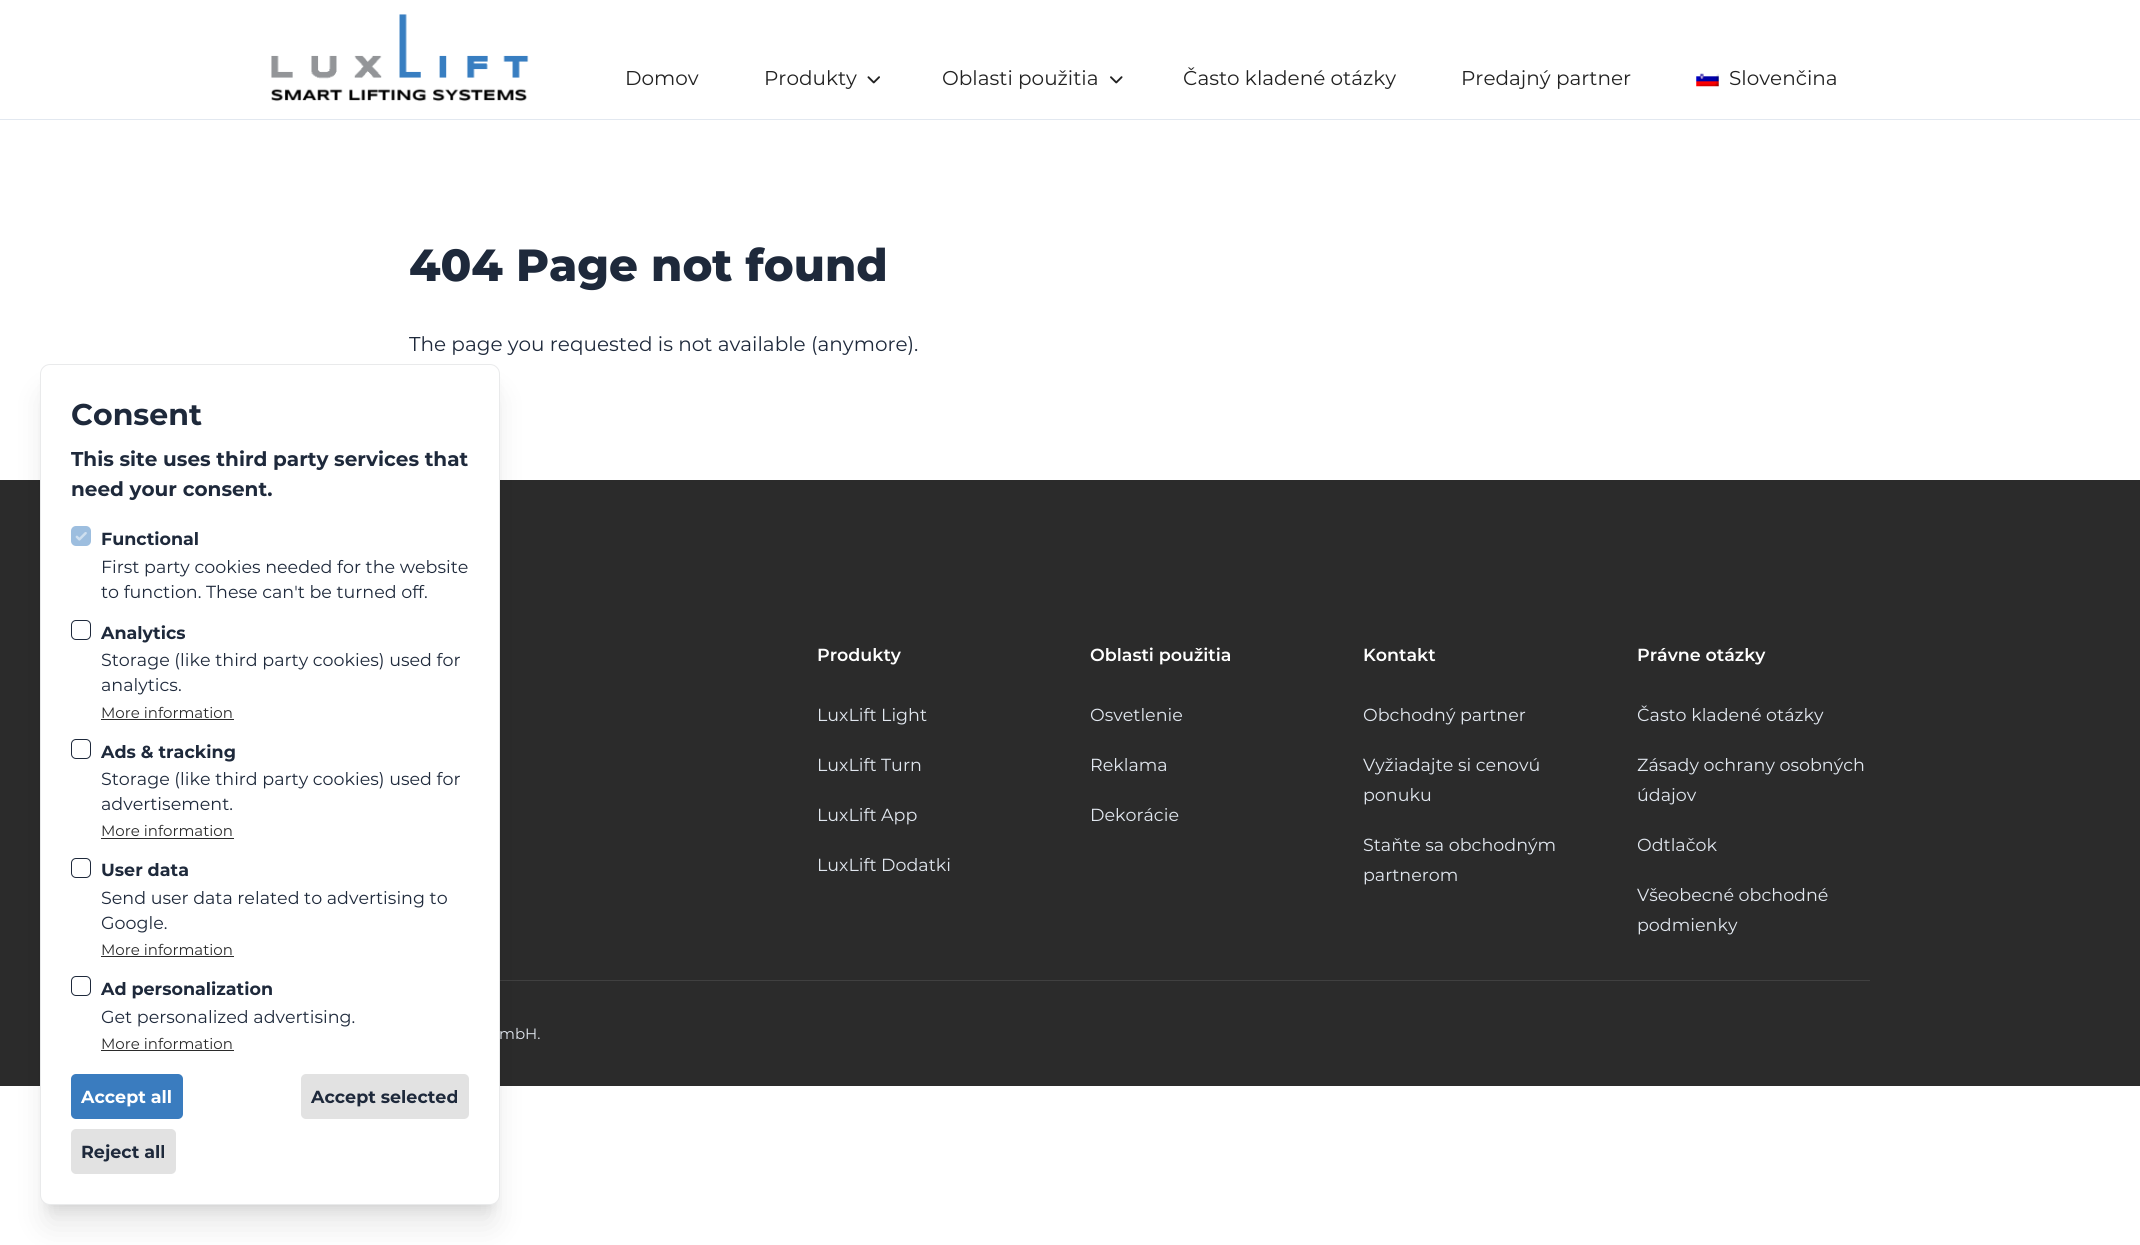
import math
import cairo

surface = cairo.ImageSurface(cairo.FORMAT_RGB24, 2140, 1245)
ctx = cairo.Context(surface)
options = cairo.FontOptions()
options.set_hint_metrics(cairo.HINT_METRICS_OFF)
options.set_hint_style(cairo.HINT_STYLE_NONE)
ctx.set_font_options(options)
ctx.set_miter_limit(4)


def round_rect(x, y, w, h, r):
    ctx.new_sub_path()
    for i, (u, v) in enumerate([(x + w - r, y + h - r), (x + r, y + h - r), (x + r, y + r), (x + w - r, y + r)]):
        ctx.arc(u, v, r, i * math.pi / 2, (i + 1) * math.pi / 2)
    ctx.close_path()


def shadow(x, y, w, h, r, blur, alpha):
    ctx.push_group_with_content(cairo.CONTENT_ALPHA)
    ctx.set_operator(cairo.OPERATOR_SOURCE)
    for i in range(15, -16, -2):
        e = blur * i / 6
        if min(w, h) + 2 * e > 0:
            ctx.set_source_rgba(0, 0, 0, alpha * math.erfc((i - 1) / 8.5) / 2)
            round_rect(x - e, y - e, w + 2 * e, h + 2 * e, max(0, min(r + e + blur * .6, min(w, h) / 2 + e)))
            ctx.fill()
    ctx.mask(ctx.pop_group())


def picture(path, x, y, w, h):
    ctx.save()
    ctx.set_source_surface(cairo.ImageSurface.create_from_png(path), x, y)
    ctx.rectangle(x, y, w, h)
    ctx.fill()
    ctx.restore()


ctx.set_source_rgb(1, 1, 1)
ctx.paint()
ctx.set_source_rgb(0.886, 0.91, 0.941)
ctx.rectangle(0, 119, 2140, 1)
ctx.fill()
picture("img1.png", 271, 14, 258, 88)
ctx.select_font_face("Montserrat")
ctx.set_font_size(20)
ctx.set_source_rgb(0.133, 0.133, 0.133)
ctx.move_to(625, 85)
ctx.show_text("Domov")
ctx.move_to(764, 85)
ctx.show_text("Produkty")
picture("img2.png", 867, 76, 13, 8)
ctx.move_to(942, 85)
ctx.show_text("Oblasti použitia")
picture("img3.png", 1110, 76, 13, 8)
ctx.move_to(1183, 85)
ctx.show_text("Často kladené otázky")
ctx.move_to(1461, 85)
ctx.show_text("Predajný partner")
picture("img4.png", 1696, 73, 23, 14)
ctx.move_to(1729, 85)
ctx.show_text("Slovenčina")
ctx.select_font_face("Montserrat ExtraBold")
ctx.set_font_size(45)
ctx.set_source_rgb(0.118, 0.161, 0.231)
ctx.move_to(409, 281)
ctx.show_text("404 Page not found")
ctx.select_font_face("Montserrat")
ctx.set_font_size(20)
ctx.move_to(409, 351)
ctx.show_text("The page you requested is not available (anymore).")
ctx.set_source_rgb(0.169, 0.169, 0.169)
ctx.rectangle(0, 480, 2140, 606)
ctx.fill()
ctx.set_source_rgb(0.251, 0.251, 0.251)
ctx.rectangle(500, 980, 1370, 1)
ctx.fill()
ctx.set_source_rgb(0, 0, 0)
shadow(48, 381, 445, 827, 2.5, 6, 0.1)
shadow(46, 395, 448, 829, 4, 15.5, 0.1)
ctx.set_source_rgb(1, 1, 1)
round_rect(40, 364, 460, 841, 10)
ctx.fill()
round_rect(40.5, 364.5, 459, 840, 9.5)
ctx.set_source_rgba(0.118, 0.161, 0.231, 0.1)
ctx.set_line_width(1)
ctx.stroke()
ctx.select_font_face("Montserrat", cairo.FONT_SLANT_NORMAL, cairo.FONT_WEIGHT_BOLD)
ctx.set_font_size(30)
ctx.set_source_rgb(0.118, 0.161, 0.231)
ctx.move_to(71, 425)
ctx.show_text("Consent")
ctx.set_font_size(20)
ctx.move_to(71, 466)
ctx.show_text("This site uses third party services that")
ctx.move_to(71, 496)
ctx.show_text("need your consent.")
ctx.set_source_rgb(0.616, 0.745, 0.875)
round_rect(71, 526, 20, 20, 5)
ctx.fill()
picture("img5.png", 75, 532, 12, 9)
ctx.set_font_size(17.5)
ctx.set_source_rgb(0.118, 0.161, 0.231)
ctx.move_to(101, 545)
ctx.show_text("Functional")
ctx.select_font_face("Montserrat")
ctx.move_to(101, 573)
ctx.show_text("First party cookies needed for the website")
ctx.move_to(101, 598)
ctx.show_text("to function. These can't be turned off.")
round_rect(71.5, 620.5, 19, 19, 4.5)
ctx.stroke()
ctx.select_font_face("Montserrat", cairo.FONT_SLANT_NORMAL, cairo.FONT_WEIGHT_BOLD)
ctx.move_to(101, 639)
ctx.show_text("Analytics")
ctx.select_font_face("Montserrat")
ctx.move_to(101, 666)
ctx.show_text("Storage (like third party cookies) used for")
ctx.move_to(101, 691)
ctx.show_text("analytics.")
ctx.set_font_size(15)
ctx.set_source_rgb(0.169, 0.169, 0.169)
ctx.move_to(101, 718)
ctx.show_text("More information")
ctx.rectangle(101, 719, 133, 1)
ctx.fill()
round_rect(71.5, 739.5, 19, 19, 4.5)
ctx.set_source_rgb(0.118, 0.161, 0.231)
ctx.stroke()
ctx.select_font_face("Montserrat", cairo.FONT_SLANT_NORMAL, cairo.FONT_WEIGHT_BOLD)
ctx.set_font_size(17.5)
ctx.move_to(101, 758)
ctx.show_text("Ads & tracking")
ctx.select_font_face("Montserrat")
ctx.move_to(101, 785)
ctx.show_text("Storage (like third party cookies) used for")
ctx.move_to(101, 810)
ctx.show_text("advertisement.")
ctx.set_font_size(15)
ctx.set_source_rgb(0.169, 0.169, 0.169)
ctx.move_to(101, 836)
ctx.show_text("More information")
ctx.rectangle(101, 838, 133, 1)
ctx.fill()
round_rect(71.5, 858.5, 19, 19, 4.5)
ctx.set_source_rgb(0.118, 0.161, 0.231)
ctx.stroke()
ctx.select_font_face("Montserrat", cairo.FONT_SLANT_NORMAL, cairo.FONT_WEIGHT_BOLD)
ctx.set_font_size(17.5)
ctx.move_to(101, 876)
ctx.show_text("User data")
ctx.select_font_face("Montserrat")
ctx.move_to(101, 904)
ctx.show_text("Send user data related to advertising to")
ctx.move_to(101, 929)
ctx.show_text("Google.")
ctx.set_font_size(15)
ctx.set_source_rgb(0.169, 0.169, 0.169)
ctx.move_to(101, 955)
ctx.show_text("More information")
ctx.rectangle(101, 956, 133, 1)
ctx.fill()
round_rect(71.5, 976.5, 19, 19, 4.5)
ctx.set_source_rgb(0.118, 0.161, 0.231)
ctx.stroke()
ctx.select_font_face("Montserrat", cairo.FONT_SLANT_NORMAL, cairo.FONT_WEIGHT_BOLD)
ctx.set_font_size(17.5)
ctx.move_to(101, 995)
ctx.show_text("Ad personalization")
ctx.select_font_face("Montserrat")
ctx.move_to(101, 1023)
ctx.show_text("Get personalized advertising.")
ctx.set_font_size(15)
ctx.set_source_rgb(0.169, 0.169, 0.169)
ctx.move_to(101, 1049)
ctx.show_text("More information")
ctx.rectangle(101, 1050, 133, 1)
ctx.fill()
ctx.set_source_rgb(0.227, 0.486, 0.749)
round_rect(71, 1074, 112, 45, 5)
ctx.fill()
ctx.select_font_face("Montserrat", cairo.FONT_SLANT_NORMAL, cairo.FONT_WEIGHT_BOLD)
ctx.set_font_size(17.5)
ctx.set_source_rgb(1, 1, 1)
ctx.move_to(81, 1103)
ctx.show_text("Accept all")
ctx.set_source_rgb(0.886, 0.886, 0.886)
round_rect(301, 1074, 168, 45, 5)
ctx.fill()
ctx.set_source_rgb(0.118, 0.161, 0.231)
ctx.move_to(311, 1103)
ctx.show_text("Accept selected")
ctx.set_source_rgb(0.886, 0.886, 0.886)
round_rect(71, 1129, 105, 45, 5)
ctx.fill()
ctx.set_source_rgb(0.118, 0.161, 0.231)
ctx.move_to(81, 1158)
ctx.show_text("Reject all")
ctx.select_font_face("Montserrat SemiBold")
ctx.set_source_rgb(1, 1, 1)
ctx.move_to(817, 661)
ctx.show_text("Produkty")
ctx.select_font_face("Montserrat")
ctx.set_source_rgb(0.886, 0.91, 0.941)
ctx.move_to(817, 721)
ctx.show_text("LuxLift Light")
ctx.move_to(817, 771)
ctx.show_text("LuxLift Turn")
ctx.move_to(817, 821)
ctx.show_text("LuxLift App")
ctx.move_to(817, 871)
ctx.show_text("LuxLift Dodatki")
ctx.select_font_face("Montserrat SemiBold")
ctx.set_source_rgb(1, 1, 1)
ctx.move_to(1090, 661)
ctx.show_text("Oblasti použitia")
ctx.select_font_face("Montserrat")
ctx.set_source_rgb(0.886, 0.91, 0.941)
ctx.move_to(1090, 721)
ctx.show_text("Osvetlenie")
ctx.move_to(1090, 771)
ctx.show_text("Reklama")
ctx.move_to(1090, 821)
ctx.show_text("Dekorácie")
ctx.select_font_face("Montserrat SemiBold")
ctx.set_source_rgb(1, 1, 1)
ctx.move_to(1363, 661)
ctx.show_text("Kontakt")
ctx.select_font_face("Montserrat")
ctx.set_source_rgb(0.886, 0.91, 0.941)
ctx.move_to(1363, 721)
ctx.show_text("Obchodný partner")
ctx.move_to(1363, 771)
ctx.show_text("Vyžiadajte si cenovú")
ctx.move_to(1363, 801)
ctx.show_text("ponuku")
ctx.move_to(1363, 851)
ctx.show_text("Staňte sa obchodným")
ctx.move_to(1363, 881)
ctx.show_text("partnerom")
ctx.select_font_face("Montserrat SemiBold")
ctx.set_source_rgb(1, 1, 1)
ctx.move_to(1637, 661)
ctx.show_text("Právne otázky")
ctx.select_font_face("Montserrat")
ctx.set_source_rgb(0.886, 0.91, 0.941)
ctx.move_to(1637, 721)
ctx.show_text("Často kladené otázky")
ctx.move_to(1637, 771)
ctx.show_text("Zásady ochrany osobných")
ctx.move_to(1637, 801)
ctx.show_text("údajov")
ctx.move_to(1637, 851)
ctx.show_text("Odtlačok")
ctx.move_to(1637, 901)
ctx.show_text("Všeobecné obchodné")
ctx.move_to(1637, 931)
ctx.show_text("podmienky")
ctx.set_font_size(15)
ctx.move_to(499, 1039)
ctx.show_text("mbH.")
surface.write_to_png("page.png")
